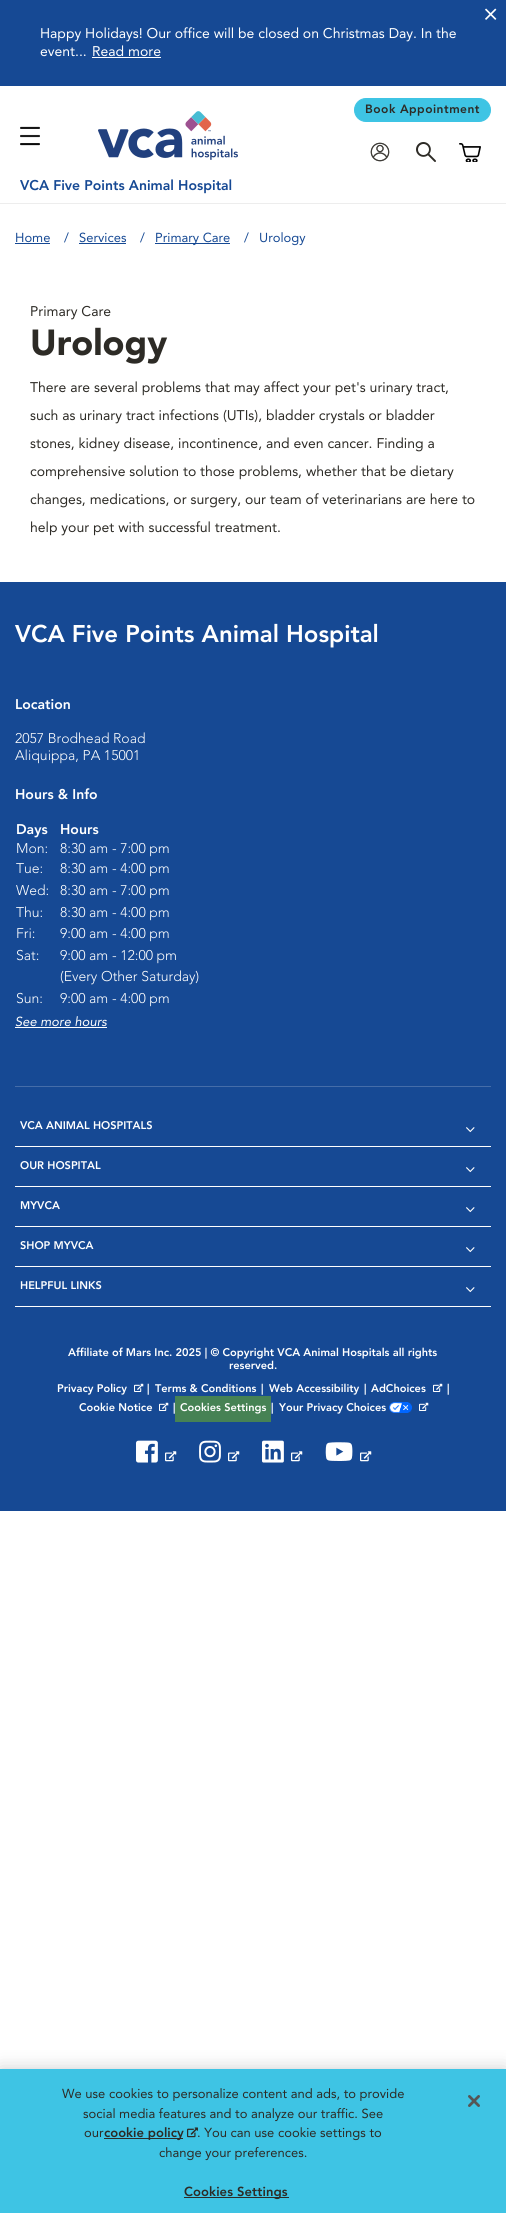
import math
import cairo

surface = cairo.ImageSurface(cairo.FORMAT_RGB24, 506, 2213)
ctx = cairo.Context(surface)
options = cairo.FontOptions()
options.set_hint_metrics(cairo.HINT_METRICS_OFF)
options.set_hint_style(cairo.HINT_STYLE_NONE)
ctx.set_font_options(options)
ctx.set_miter_limit(4)


def spaced_text(x, y, s, letter, word):
    ctx.move_to(x, y)
    for ch in s:
        ctx.show_text(ch)
        ctx.rel_move_to(letter + word * (ch == ' '), 0)


def round_rect(x, y, w, h, r):
    ctx.new_sub_path()
    for i, (u, v) in enumerate([(x + w - r, y + h - r), (x + r, y + h - r), (x + r, y + r), (x + w - r, y + r)]):
        ctx.arc(u, v, r, i * math.pi / 2, (i + 1) * math.pi / 2)
    ctx.close_path()


def shadow(x, y, w, h, r, blur, alpha):
    ctx.push_group_with_content(cairo.CONTENT_ALPHA)
    ctx.set_operator(cairo.OPERATOR_SOURCE)
    for i in range(15, -16, -2):
        e = blur * i / 6
        if min(w, h) + 2 * e > 0:
            ctx.set_source_rgba(0, 0, 0, alpha * math.erfc((i - 1) / 8.5) / 2)
            round_rect(x - e, y - e, w + 2 * e, h + 2 * e, max(0, min(r + e + blur * .6, min(w, h) / 2 + e)))
            ctx.fill()
    ctx.mask(ctx.pop_group())


def picture(path, x, y, w, h):
    ctx.save()
    ctx.set_source_surface(cairo.ImageSurface.create_from_png(path), x, y)
    ctx.rectangle(x, y, w, h)
    ctx.fill()
    ctx.restore()


ctx.set_source_rgb(1, 1, 1)
ctx.paint()
ctx.set_source_rgb(0.086, 0.286, 0.58)
ctx.rectangle(0, 0, 506, 86)
ctx.fill()
picture("img1.png", 485, 8, 12, 12)
ctx.select_font_face("Avenir")
ctx.set_font_size(14)
ctx.set_source_rgb(1, 1, 1)
ctx.move_to(40, 38)
ctx.show_text("Happy Holidays! Our office will be closed on Christmas Day. In the")
ctx.move_to(40, 56)
ctx.show_text("event...")
ctx.move_to(92, 56)
ctx.show_text("Read more")
ctx.rectangle(92, 57, 69, 1)
ctx.fill()
ctx.set_source_rgb(0.929, 0.929, 0.929)
ctx.rectangle(0, 203, 506, 1)
ctx.fill()
ctx.set_source_rgb(0.243, 0.769, 0.894)
round_rect(354.5, 98.5, 136, 23, 11.5)
ctx.fill_preserve()
ctx.set_line_width(1)
ctx.stroke()
ctx.select_font_face("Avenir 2 Black")
ctx.set_font_size(12)
ctx.set_source_rgb(0.176, 0.169, 0.149)
spaced_text(365, 113, "Book Appointment", 0.5, 0)
picture("img2.png", 370, 142, 20, 20)
picture("img3.png", 416, 142, 20, 20)
picture("img4.png", 459, 143, 22, 19)
picture("img5.png", 20, 126, 20, 20)
picture("img6.png", 98, 111, 140, 49)
ctx.set_font_size(14)
ctx.set_source_rgb(0.086, 0.286, 0.58)
ctx.move_to(20, 190)
ctx.show_text("VCA Five Points Animal Hospital")
ctx.select_font_face("Avenir")
ctx.set_font_size(13)
ctx.move_to(15, 242)
ctx.show_text("Home")
ctx.rectangle(15, 243, 35, 1)
ctx.fill()
ctx.move_to(64, 242)
ctx.show_text("/")
ctx.move_to(79, 242)
ctx.show_text("Services")
ctx.rectangle(79, 243, 47, 1)
ctx.fill()
ctx.move_to(140, 242)
ctx.show_text("/")
ctx.rectangle(155, 243, 75, 1)
ctx.fill()
ctx.move_to(155, 242)
ctx.show_text("Primary Care")
ctx.move_to(244, 242)
ctx.show_text("/")
ctx.move_to(259, 242)
ctx.show_text("Urology")
ctx.set_font_size(14)
ctx.set_source_rgb(0.176, 0.169, 0.149)
ctx.move_to(30, 316)
ctx.show_text("Primary Care")
ctx.select_font_face("Avenir Black")
ctx.set_font_size(36)
ctx.move_to(30, 355)
ctx.show_text("Urology")
ctx.select_font_face("Avenir")
ctx.set_font_size(14)
ctx.move_to(30, 392)
ctx.show_text("There are several problems that may affect your pet's urinary tract,")
ctx.move_to(30, 420)
ctx.show_text("such as urinary tract infections (UTIs), bladder crystals or bladder")
ctx.move_to(30, 448)
ctx.show_text("stones, kidney disease, incontinence, and even cancer. Finding a")
ctx.move_to(30, 476)
ctx.show_text("comprehensive solution to those problems, whether that be dietary")
ctx.move_to(30, 504)
ctx.show_text("changes, medications, or surgery, our team of veterinarians are here to")
ctx.move_to(30, 532)
ctx.show_text("help your pet with successful treatment.")
ctx.set_source_rgb(0.086, 0.286, 0.58)
ctx.rectangle(0, 582, 506, 929)
ctx.fill()
ctx.select_font_face("Avenir 2 Black")
ctx.set_font_size(24)
ctx.set_source_rgb(1, 1, 1)
ctx.move_to(15, 642)
ctx.show_text("VCA Five Points Animal Hospital")
ctx.set_font_size(14)
ctx.move_to(15, 709)
ctx.show_text("Location")
ctx.select_font_face("Avenir Light")
ctx.move_to(15, 743)
ctx.show_text("2057 Brodhead Road")
ctx.move_to(15, 760)
ctx.show_text("Aliquippa, PA 15001")
ctx.select_font_face("Avenir 2 Black")
ctx.move_to(15, 799)
ctx.show_text("Hours & Info")
ctx.move_to(16, 834)
ctx.show_text("Days")
ctx.move_to(60, 834)
ctx.show_text("Hours")
ctx.select_font_face("Avenir Light")
ctx.move_to(16, 853)
ctx.show_text("Mon:")
ctx.move_to(60, 853)
ctx.show_text("8:30 am - 7:00 pm")
ctx.move_to(16, 873)
ctx.show_text("Tue:")
ctx.move_to(60, 873)
ctx.show_text("8:30 am - 4:00 pm")
ctx.move_to(16, 895)
ctx.show_text("Wed:")
ctx.move_to(60, 895)
ctx.show_text("8:30 am - 7:00 pm")
ctx.move_to(16, 917)
ctx.show_text("Thu:")
ctx.move_to(60, 917)
ctx.show_text("8:30 am - 4:00 pm")
ctx.move_to(16, 938)
ctx.show_text("Fri:")
ctx.move_to(60, 938)
ctx.show_text("9:00 am - 4:00 pm")
ctx.move_to(16, 960)
ctx.show_text("Sat:")
ctx.move_to(60, 960)
ctx.show_text("9:00 am - 12:00 pm")
ctx.move_to(60, 981)
ctx.show_text("(Every Other Saturday)")
ctx.move_to(16, 1003)
ctx.show_text("Sun:")
ctx.move_to(60, 1003)
ctx.show_text("9:00 am - 4:00 pm")
ctx.select_font_face("Avenir", cairo.FONT_SLANT_ITALIC)
ctx.set_font_size(13)
ctx.move_to(15, 1026)
ctx.show_text("See more hours")
ctx.rectangle(15, 1027, 92, 1)
ctx.fill()
ctx.set_source_rgb(0.271, 0.427, 0.663)
ctx.rectangle(15, 1086, 476, 1)
ctx.fill()
ctx.set_source_rgb(1, 1, 1)
ctx.rectangle(15, 1146, 476, 1)
ctx.fill()
ctx.select_font_face("Avenir 2 Black")
ctx.set_font_size(11)
ctx.move_to(20, 1129)
ctx.show_text("VCA ANIMAL HOSPITALS")
picture("img7.png", 466, 1127, 9, 6)
ctx.rectangle(15, 1186, 476, 1)
ctx.fill()
ctx.move_to(20, 1169)
ctx.show_text("OUR HOSPITAL")
picture("img7.png", 466, 1167, 9, 6)
ctx.rectangle(15, 1226, 476, 1)
ctx.fill()
ctx.move_to(20, 1209)
ctx.show_text("MYVCA")
picture("img7.png", 466, 1207, 9, 6)
ctx.rectangle(15, 1266, 476, 1)
ctx.fill()
ctx.move_to(20, 1249)
ctx.show_text("SHOP MYVCA")
picture("img7.png", 466, 1247, 9, 6)
ctx.rectangle(15, 1306, 476, 1)
ctx.fill()
ctx.move_to(20, 1289)
ctx.show_text("HELPFUL LINKS")
picture("img7.png", 466, 1287, 9, 6)
ctx.move_to(68, 1356)
ctx.show_text("Affiliate of Mars Inc. 2025 | © Copyright VCA Animal Hospitals all rights")
ctx.move_to(229, 1369)
ctx.show_text("reserved.")
ctx.move_to(57, 1392)
ctx.show_text("Privacy Policy")
picture("img8.png", 134, 1383, 10, 9)
ctx.move_to(147, 1392)
ctx.show_text("|")
ctx.move_to(155, 1392)
ctx.show_text("Terms & Conditions")
ctx.move_to(261, 1392)
ctx.show_text("|")
ctx.move_to(269, 1392)
ctx.show_text("Web Accessibility")
ctx.move_to(364, 1392)
ctx.show_text("|")
ctx.move_to(371, 1392)
ctx.show_text("AdChoices")
picture("img8.png", 433, 1383, 10, 9)
ctx.move_to(447, 1392)
ctx.show_text("|")
ctx.move_to(79, 1411)
ctx.show_text("Cookie Notice")
picture("img8.png", 159, 1402, 10, 9)
ctx.move_to(173, 1411)
ctx.show_text("|")
ctx.set_source_rgb(0.275, 0.51, 0.329)
ctx.rectangle(175, 1396, 96, 26)
ctx.fill()
ctx.set_source_rgb(1, 1, 1)
ctx.move_to(180, 1411)
ctx.show_text("Cookies Settings")
ctx.move_to(271, 1411)
ctx.show_text("|")
ctx.move_to(279, 1411)
ctx.show_text("Your Privacy Choices")
picture("img9.png", 389, 1402, 23, 11)
picture("img8.png", 419, 1402, 10, 9)
picture("img10.png", 136, 1440, 22, 23)
picture("img11.png", 165, 1451, 12, 11)
picture("img12.png", 199, 1440, 22, 23)
picture("img11.png", 228, 1451, 12, 11)
picture("img13.png", 262, 1440, 22, 23)
picture("img11.png", 291, 1451, 12, 11)
picture("img14.png", 325, 1442, 28, 19)
picture("img11.png", 360, 1451, 12, 11)
ctx.set_source_rgb(0, 0, 0)
shadow(0, 2069, 506, 144, 0, 9, 0.2)
ctx.set_source_rgb(0.243, 0.769, 0.894)
ctx.rectangle(0, 2069, 506, 144)
ctx.fill()
ctx.select_font_face("Avenir")
ctx.set_font_size(13)
ctx.set_source_rgb(0.176, 0.169, 0.149)
ctx.move_to(62, 2098)
ctx.show_text("We use cookies to personalize content and ads, to provide")
ctx.move_to(83, 2118)
ctx.show_text("social media features and to analyze our traffic. See")
ctx.move_to(84, 2137)
ctx.show_text("our")
ctx.rectangle(104, 2138, 79, 1)
ctx.fill()
ctx.select_font_face("Avenir 2 Black")
ctx.move_to(104, 2137)
ctx.show_text("cookie policy")
picture("img15.png", 187, 2127, 11, 11)
ctx.select_font_face("Avenir")
ctx.move_to(197, 2137)
ctx.show_text(". You can use cookie settings to")
ctx.move_to(159, 2157)
ctx.show_text("change your preferences.")
ctx.rectangle(184, 2197, 105, 1)
ctx.fill()
ctx.select_font_face("Avenir 2 Black")
spaced_text(184, 2196, "Cookies Settings", 0.1, 0)
picture("img16.png", 468, 2095, 12, 12)
surface.write_to_png("page.png")
